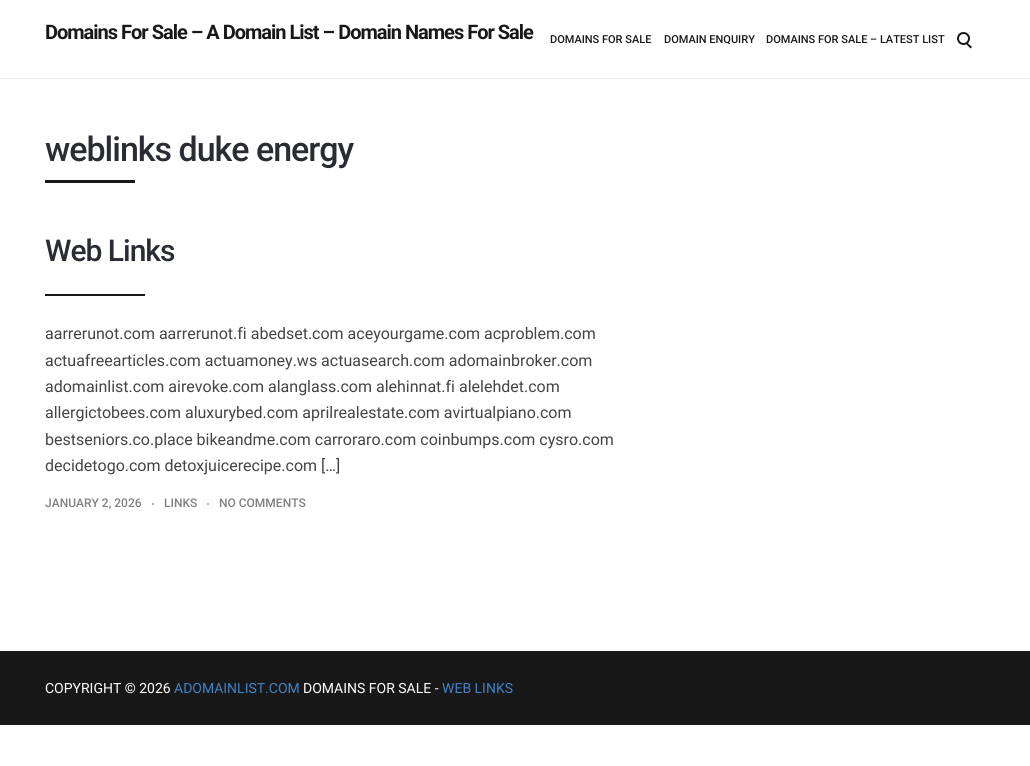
import math
import cairo

surface = cairo.ImageSurface(cairo.FORMAT_RGB24, 1030, 766)
ctx = cairo.Context(surface)
options = cairo.FontOptions()
options.set_hint_metrics(cairo.HINT_METRICS_OFF)
options.set_hint_style(cairo.HINT_STYLE_NONE)
ctx.set_font_options(options)
ctx.set_miter_limit(4)


def spaced_text(x, y, s, letter, word):
    ctx.move_to(x, y)
    for ch in s:
        ctx.show_text(ch)
        ctx.rel_move_to(letter + word * (ch == ' '), 0)


ctx.set_source_rgb(1, 1, 1)
ctx.paint()
ctx.set_source_rgb(0.933, 0.933, 0.933)
ctx.rectangle(0, 78, 1030, 1)
ctx.fill()
ctx.select_font_face("Roboto", cairo.FONT_SLANT_NORMAL, cairo.FONT_WEIGHT_BOLD)
ctx.set_font_size(20)
ctx.set_source_rgb(0.094, 0.094, 0.094)
spaced_text(45, 39, "Domains For Sale – A Domain List – Domain Names For Sale", -1, 0)
ctx.select_font_face("Roboto Medium")
ctx.set_font_size(11)
ctx.move_to(550, 43)
ctx.show_text("DOMAINS FOR SALE")
ctx.move_to(664, 43)
ctx.show_text("DOMAIN ENQUIRY")
ctx.move_to(766, 43)
ctx.show_text("DOMAINS FOR SALE – LATEST LIST")
ctx.new_path()
ctx.arc(963.5, 38.5, 5.5, 0, 2 * math.pi)
ctx.stroke()
ctx.new_path()
ctx.move_to(966, 44)
ctx.line_to(967.5, 43)
ctx.line_to(972, 47)
ctx.line_to(970.5, 48.5)
ctx.close_path()
ctx.fill()
ctx.set_font_size(34)
ctx.set_source_rgb(0.161, 0.173, 0.2)
spaced_text(45, 161, "weblinks duke energy", -1, 0)
ctx.set_source_rgb(0.094, 0.094, 0.094)
ctx.rectangle(45, 180, 90, 3)
ctx.fill()
ctx.set_font_size(30)
ctx.set_source_rgb(0.161, 0.173, 0.2)
spaced_text(45, 261, "Web Links", -1, 0)
ctx.set_source_rgb(0.094, 0.094, 0.094)
ctx.rectangle(45, 294, 100, 2)
ctx.fill()
ctx.select_font_face("Roboto")
ctx.set_font_size(16)
ctx.set_source_rgb(0.267, 0.267, 0.267)
ctx.move_to(45, 339)
ctx.show_text("aarrerunot.com aarrerunot.fi abedset.com aceyourgame.com acproblem.com")
ctx.move_to(45, 366)
ctx.show_text("actuafreearticles.com actuamoney.ws actuasearch.com adomainbroker.com")
ctx.move_to(45, 392)
ctx.show_text("adomainlist.com airevoke.com alanglass.com alehinnat.fi alelehdet.com")
ctx.move_to(45, 418)
ctx.show_text("allergictobees.com aluxurybed.com aprilrealestate.com avirtualpiano.com")
ctx.move_to(45, 445)
ctx.show_text("bestseniors.co.place bikeandme.com carroraro.com coinbumps.com cysro.com")
ctx.move_to(45, 471)
ctx.show_text("decidetogo.com detoxjuicerecipe.com […]")
ctx.select_font_face("Roboto Medium")
ctx.set_font_size(12)
ctx.set_source_rgb(0.502, 0.502, 0.502)
ctx.move_to(45, 507)
ctx.show_text("JANUARY 2, 2026")
ctx.set_source_rgb(0.682, 0.714, 0.725)
ctx.rectangle(152, 503, 2, 2)
ctx.fill()
ctx.set_source_rgb(0.502, 0.502, 0.502)
ctx.move_to(164, 507)
ctx.show_text("LINKS")
ctx.set_source_rgb(0.682, 0.714, 0.725)
ctx.rectangle(207, 503, 2, 2)
ctx.fill()
ctx.set_source_rgb(0.502, 0.502, 0.502)
ctx.move_to(219, 507)
ctx.show_text("NO COMMENTS")
ctx.set_source_rgb(0.094, 0.094, 0.094)
ctx.rectangle(0, 651, 1030, 74)
ctx.fill()
ctx.select_font_face("Roboto")
ctx.set_font_size(14)
ctx.set_source_rgb(1, 1, 1)
ctx.move_to(45, 693)
ctx.show_text("COPYRIGHT © 2026")
ctx.set_source_rgb(0.251, 0.51, 0.776)
ctx.move_to(174, 693)
ctx.show_text("ADOMAINLIST.COM")
ctx.set_source_rgb(1, 1, 1)
ctx.move_to(303, 693)
ctx.show_text("DOMAINS FOR SALE -")
ctx.set_source_rgb(0.251, 0.51, 0.776)
ctx.move_to(442, 693)
ctx.show_text("WEB LINKS")
surface.write_to_png("page.png")
